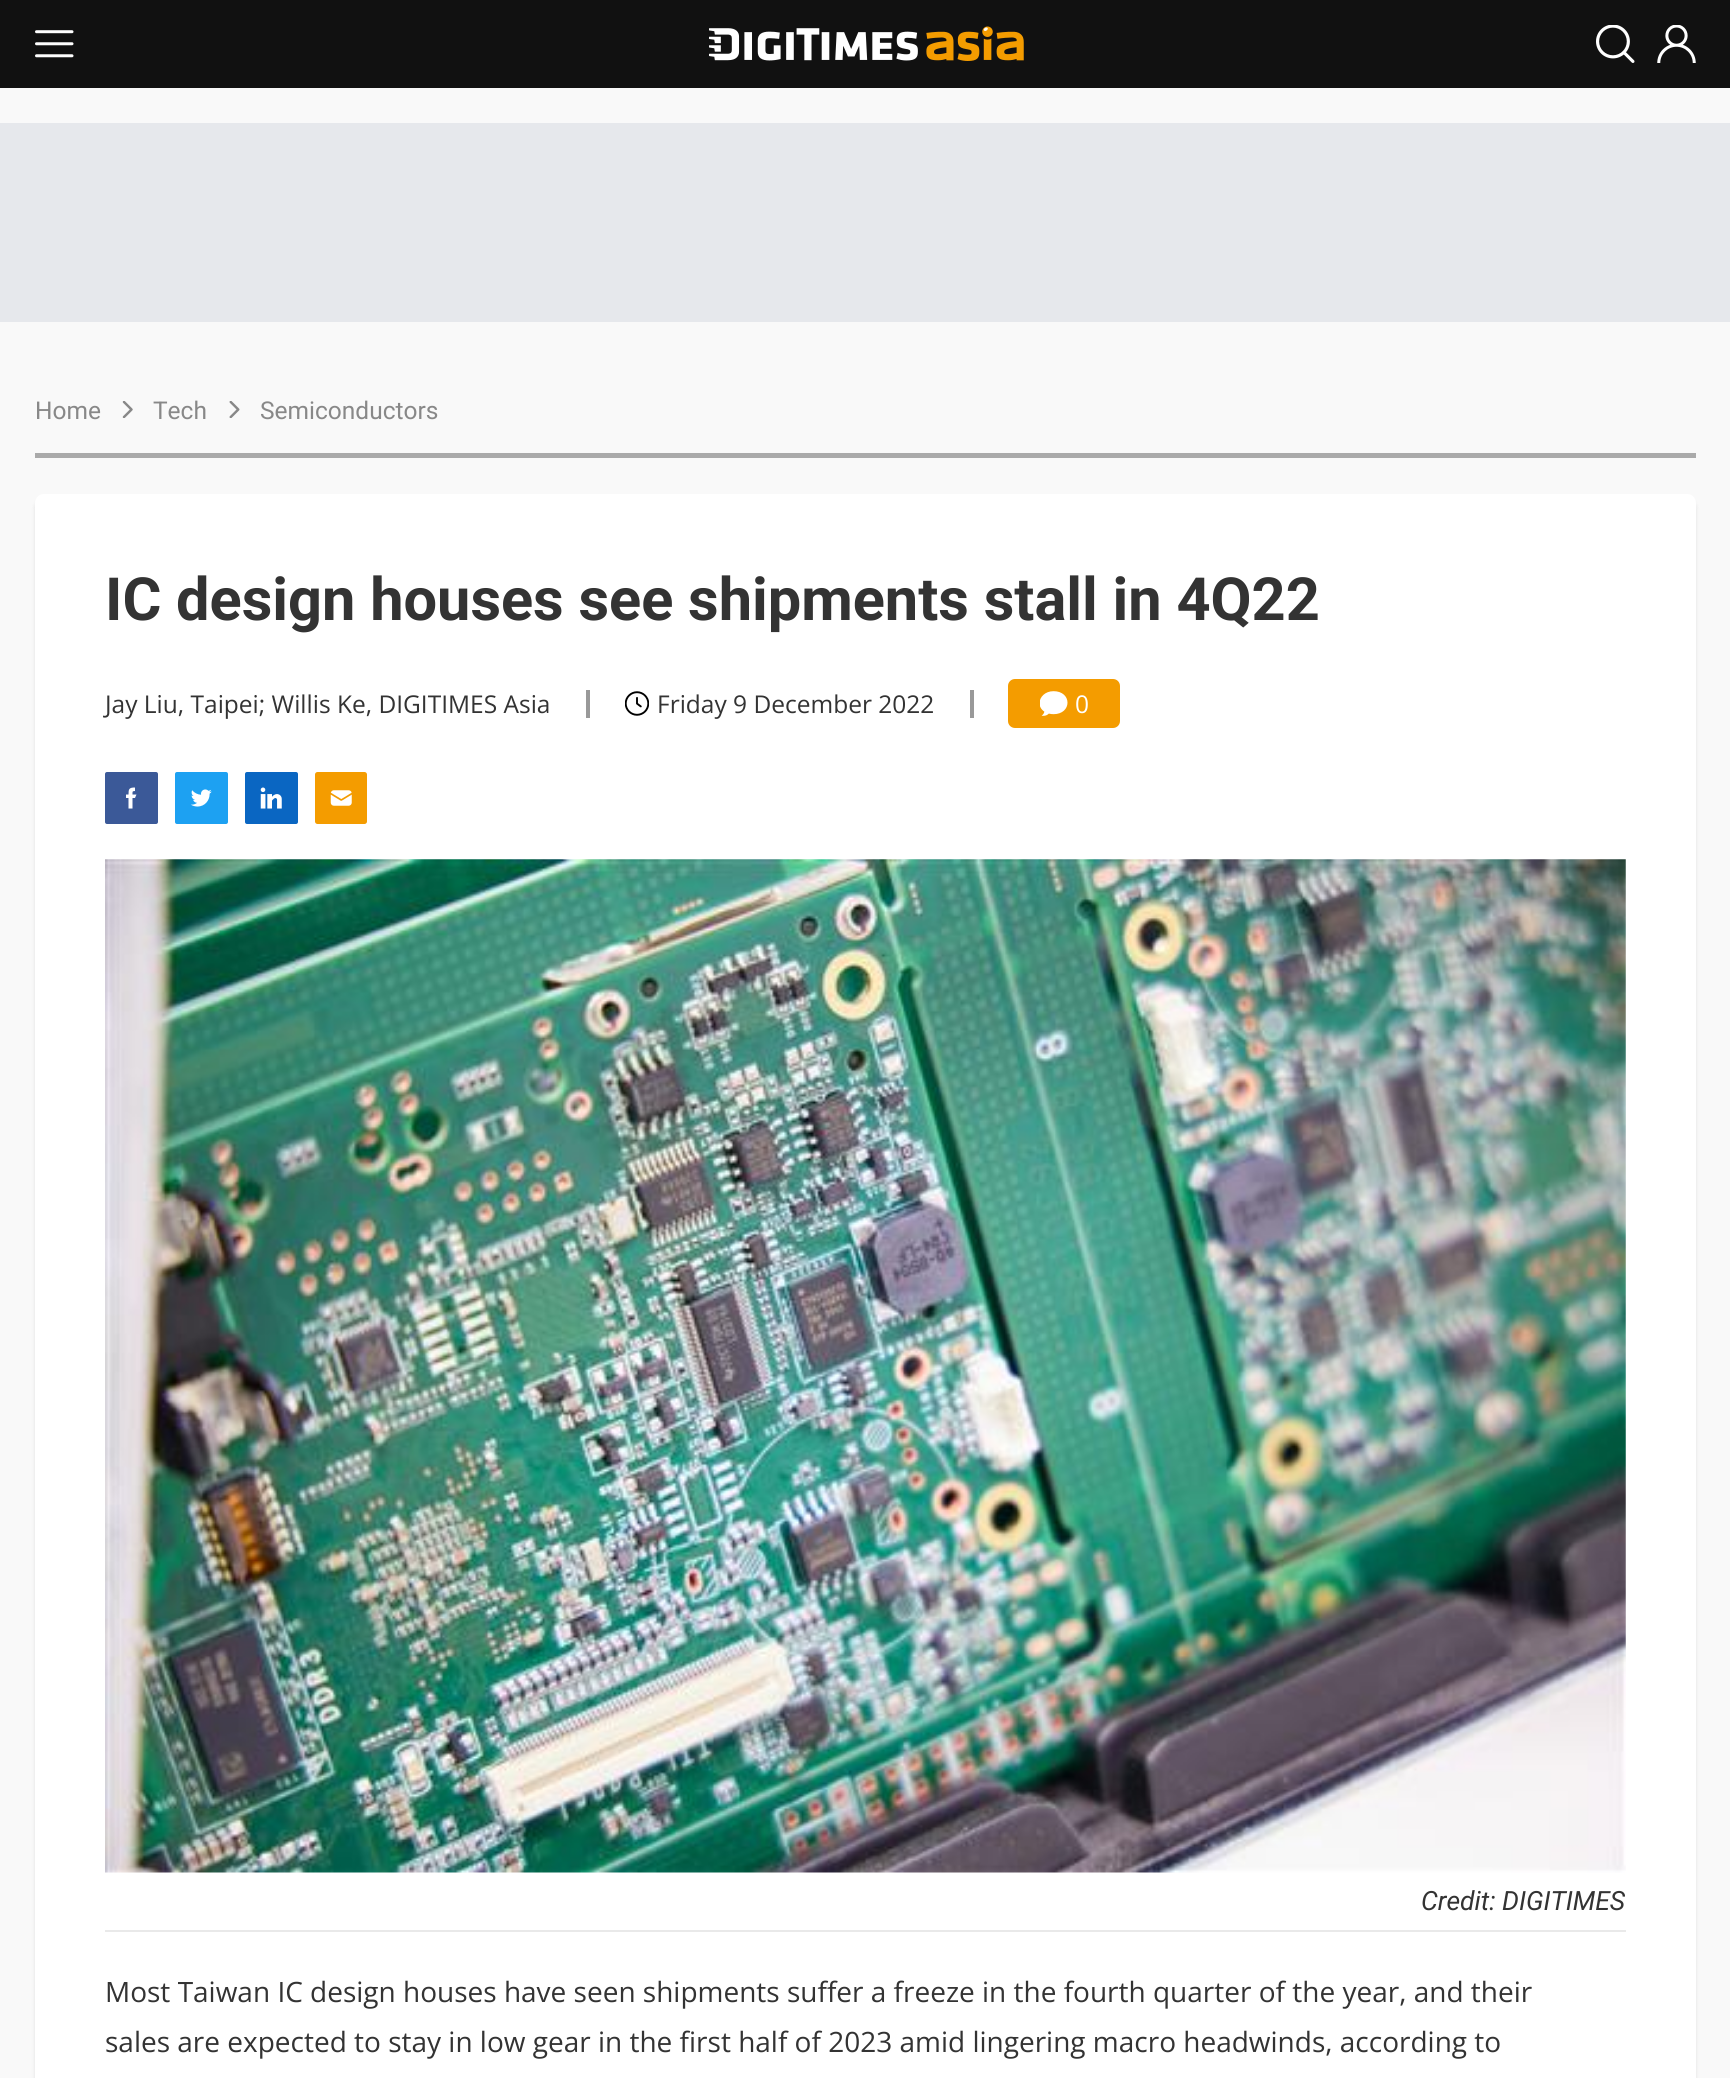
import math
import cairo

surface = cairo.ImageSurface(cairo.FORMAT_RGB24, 1730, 2078)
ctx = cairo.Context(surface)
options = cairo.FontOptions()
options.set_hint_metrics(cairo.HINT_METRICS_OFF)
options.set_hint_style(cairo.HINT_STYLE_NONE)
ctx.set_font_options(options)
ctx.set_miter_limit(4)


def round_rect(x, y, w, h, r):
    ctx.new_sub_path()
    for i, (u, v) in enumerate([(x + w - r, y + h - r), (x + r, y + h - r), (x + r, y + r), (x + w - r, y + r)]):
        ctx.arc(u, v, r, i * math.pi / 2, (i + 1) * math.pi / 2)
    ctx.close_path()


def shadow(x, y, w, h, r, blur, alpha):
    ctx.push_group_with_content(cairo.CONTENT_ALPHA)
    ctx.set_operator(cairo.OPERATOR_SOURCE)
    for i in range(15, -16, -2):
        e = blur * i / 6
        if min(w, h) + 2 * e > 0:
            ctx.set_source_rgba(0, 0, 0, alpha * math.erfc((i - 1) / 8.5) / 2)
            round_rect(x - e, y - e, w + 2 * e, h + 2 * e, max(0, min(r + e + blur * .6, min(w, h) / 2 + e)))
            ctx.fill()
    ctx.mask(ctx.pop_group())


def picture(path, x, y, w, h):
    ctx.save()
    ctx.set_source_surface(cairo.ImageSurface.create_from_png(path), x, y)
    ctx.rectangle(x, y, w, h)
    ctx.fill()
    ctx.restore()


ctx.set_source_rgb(0.973, 0.973, 0.973)
ctx.paint()
ctx.set_source_rgb(0.067, 0.067, 0.067)
ctx.rectangle(0, 0, 1730, 88)
ctx.fill()
picture("img1.png", 35, 30, 39, 28)
picture("img2.png", 709, 26, 315, 35)
picture("img3.png", 1596, 25, 39, 38)
picture("img4.png", 1657, 25, 39, 38)
ctx.set_source_rgb(0.902, 0.91, 0.922)
ctx.rectangle(0, 123, 1730, 199)
ctx.fill()
ctx.set_source_rgb(0.667, 0.667, 0.667)
ctx.rectangle(35, 453, 1661, 5)
ctx.fill()
ctx.select_font_face("Roboto")
ctx.set_font_size(24.5)
ctx.set_source_rgb(0.533, 0.533, 0.533)
ctx.move_to(35, 419)
ctx.show_text("Home")
picture("img5.png", 122, 401, 11, 17)
ctx.move_to(153, 419)
ctx.show_text("Tech")
picture("img6.png", 229, 401, 11, 17)
ctx.move_to(260, 419)
ctx.show_text("Semiconductors")
ctx.set_source_rgb(0, 0, 0)
shadow(35, 499, 1661, 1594, 9, 2, 0.1)
ctx.set_source_rgb(1, 1, 1)
round_rect(35, 494, 1661, 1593, 9)
ctx.fill()
ctx.select_font_face("Roboto", cairo.FONT_SLANT_NORMAL, cairo.FONT_WEIGHT_BOLD)
ctx.set_font_size(59.5)
ctx.set_source_rgb(0.2, 0.2, 0.2)
ctx.move_to(105, 620)
ctx.show_text("IC design houses see shipments stall in 4Q22")
ctx.select_font_face("Open Sans")
ctx.set_font_size(24.5)
ctx.move_to(105, 713)
ctx.show_text("Jay Liu, Taipei; Willis Ke, DIGITIMES Asia")
ctx.set_source_rgb(0.6, 0.6, 0.6)
ctx.rectangle(586, 690, 4, 28)
ctx.fill()
picture("img7.png", 625, 691, 24, 25)
ctx.set_source_rgb(0.2, 0.2, 0.2)
ctx.move_to(657, 713)
ctx.show_text("Friday 9 December 2022")
ctx.set_source_rgb(0.6, 0.6, 0.6)
ctx.rectangle(970, 690, 4, 28)
ctx.fill()
ctx.set_source_rgb(0.957, 0.612, 0)
round_rect(1008, 679, 112, 49, 7)
ctx.fill()
picture("img8.png", 1040, 691, 28, 25)
ctx.set_source_rgb(1, 1, 1)
ctx.move_to(1075, 713)
ctx.show_text("0")
ctx.set_source_rgb(0.231, 0.349, 0.596)
round_rect(105, 772, 53, 52, 2)
ctx.fill()
ctx.set_source_rgb(1, 1, 1)
ctx.new_path()
ctx.move_to(132.5, 794.5)
ctx.curve_to(132.5, 792, 132, 791, 135, 791)
ctx.line_to(135, 787.5)
ctx.curve_to(129, 787.5, 128.5, 789, 128.5, 794.5)
ctx.line_to(126, 794.5)
ctx.line_to(126, 798)
ctx.line_to(128.5, 798)
ctx.line_to(128.5, 808.5)
ctx.line_to(132.5, 808.5)
ctx.line_to(132.5, 798)
ctx.line_to(135, 798)
ctx.line_to(136.5, 794.5)
ctx.close_path()
ctx.fill()
picture("img9.png", 175, 772, 53, 52)
picture("img10.png", 245, 772, 53, 52)
picture("img11.png", 315, 772, 52, 52)
picture("img12.png", 105, 859, 1521, 1014)
ctx.set_source_rgb(0.914, 0.914, 0.914)
ctx.rectangle(105, 1930, 1521, 2)
ctx.fill()
ctx.select_font_face("Roboto", cairo.FONT_SLANT_ITALIC)
ctx.set_font_size(26.5)
ctx.set_source_rgb(0.2, 0.2, 0.2)
ctx.move_to(1421, 1910)
ctx.show_text("Credit: DIGITIMES")
ctx.select_font_face("Open Sans")
ctx.set_font_size(28)
ctx.move_to(105, 2002)
ctx.show_text("Most Taiwan IC design houses have seen shipments suffer a freeze in the fourth quarter of the year, and their")
ctx.move_to(105, 2052)
ctx.show_text("sales are expected to stay in low gear in the first half of 2023 amid lingering macro headwinds, according to")
surface.write_to_png("page.png")
